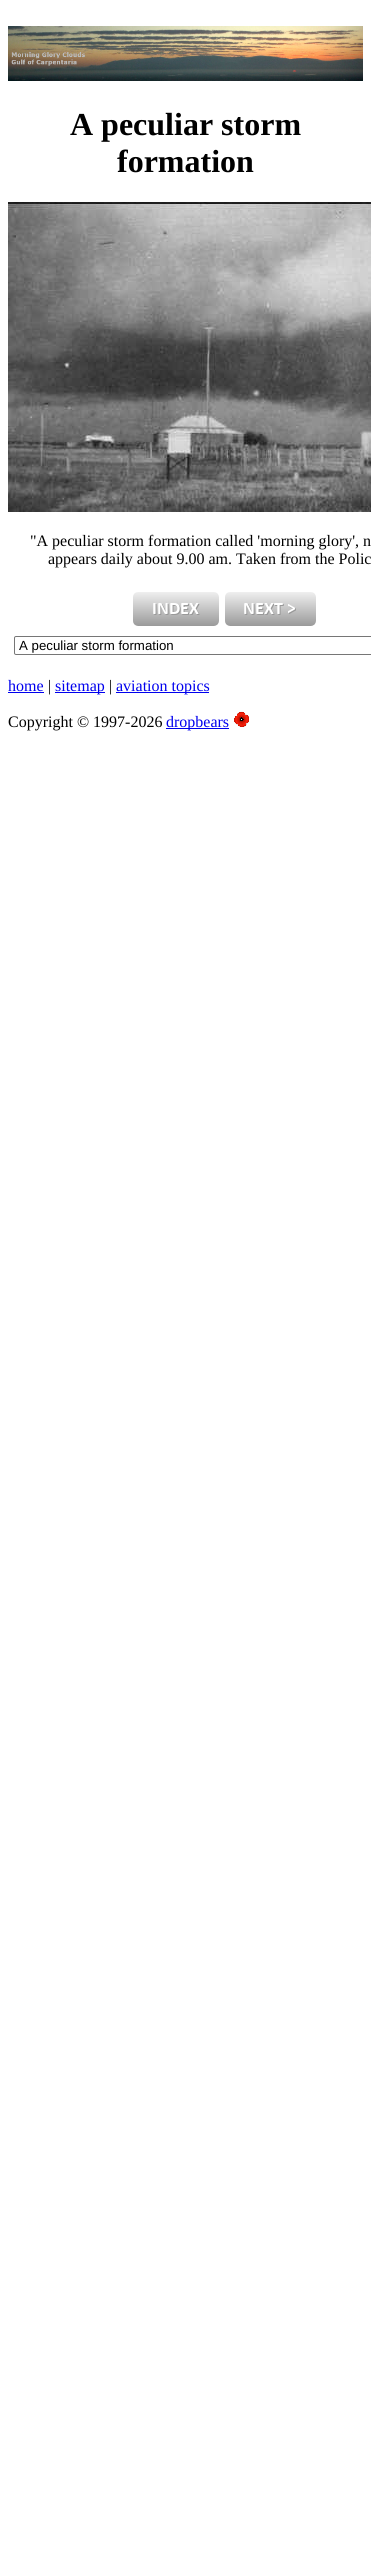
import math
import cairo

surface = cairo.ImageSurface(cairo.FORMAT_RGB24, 371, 2561)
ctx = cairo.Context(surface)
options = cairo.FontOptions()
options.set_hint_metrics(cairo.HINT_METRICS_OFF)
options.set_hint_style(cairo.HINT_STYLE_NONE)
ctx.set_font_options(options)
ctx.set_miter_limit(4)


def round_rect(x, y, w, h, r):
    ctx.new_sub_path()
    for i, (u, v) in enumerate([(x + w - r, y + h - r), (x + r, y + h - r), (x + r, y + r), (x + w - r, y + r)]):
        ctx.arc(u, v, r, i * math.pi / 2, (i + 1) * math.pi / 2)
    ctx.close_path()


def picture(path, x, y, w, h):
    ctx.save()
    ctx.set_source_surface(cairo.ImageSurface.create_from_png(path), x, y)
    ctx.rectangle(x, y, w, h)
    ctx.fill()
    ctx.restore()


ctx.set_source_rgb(1, 1, 1)
ctx.paint()
picture("img1.png", 8, 26, 355, 55)
ctx.select_font_face("Liberation Serif", cairo.FONT_SLANT_NORMAL, cairo.FONT_WEIGHT_BOLD)
ctx.set_font_size(32)
ctx.set_source_rgb(0, 0, 0)
ctx.move_to(70, 135)
ctx.show_text("A peculiar storm")
ctx.move_to(117, 172)
ctx.show_text("formation")
picture("img2.png", 8, 202, 363, 310)
ctx.select_font_face("Liberation Serif")
ctx.set_font_size(16)
ctx.move_to(30, 546)
ctx.show_text("\"A peculiar storm formation called 'morning glory', n")
ctx.move_to(48, 564)
ctx.show_text("appears daily about 9.00 am. Taken from the Polic")
picture("img3.png", 133, 592, 86, 34)
picture("img4.png", 225, 592, 91, 34)
round_rect(14.5, 636.5, 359, 18, 1.5)
ctx.set_source_rgb(0.463, 0.463, 0.463)
ctx.set_line_width(1)
ctx.stroke()
ctx.select_font_face("Liberation Sans")
ctx.set_font_size(13.25)
ctx.set_source_rgb(0, 0, 0)
ctx.move_to(19, 650)
ctx.show_text("A peculiar storm formation")
ctx.select_font_face("Liberation Serif")
ctx.set_font_size(16)
ctx.set_source_rgb(0, 0, 0.933)
ctx.move_to(8, 691)
ctx.show_text("home")
ctx.rectangle(8, 692, 36, 1)
ctx.fill()
ctx.set_source_rgb(0, 0, 0)
ctx.move_to(48, 691)
ctx.show_text("|")
ctx.set_source_rgb(0, 0, 0.933)
ctx.rectangle(55, 692, 50, 1)
ctx.fill()
ctx.move_to(55, 691)
ctx.show_text("sitemap")
ctx.set_source_rgb(0, 0, 0)
ctx.move_to(109, 691)
ctx.show_text("|")
ctx.set_source_rgb(0, 0, 0.933)
ctx.rectangle(116, 692, 93, 1)
ctx.fill()
ctx.move_to(116, 691)
ctx.show_text("aviation topics")
ctx.set_source_rgb(0, 0, 0)
ctx.move_to(8, 727)
ctx.show_text("Copyright © 1997-2026")
ctx.set_source_rgb(0, 0, 0.933)
ctx.rectangle(166, 728, 63, 1)
ctx.fill()
ctx.move_to(166, 727)
ctx.show_text("dropbears")
picture("img5.png", 234, 711, 15, 16)
surface.write_to_png("page.png")
